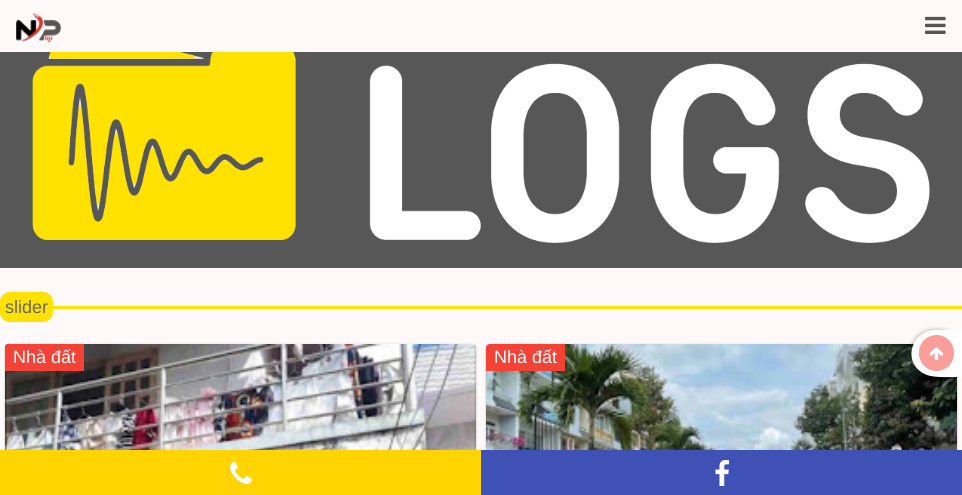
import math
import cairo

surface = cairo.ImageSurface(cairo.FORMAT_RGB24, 962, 495)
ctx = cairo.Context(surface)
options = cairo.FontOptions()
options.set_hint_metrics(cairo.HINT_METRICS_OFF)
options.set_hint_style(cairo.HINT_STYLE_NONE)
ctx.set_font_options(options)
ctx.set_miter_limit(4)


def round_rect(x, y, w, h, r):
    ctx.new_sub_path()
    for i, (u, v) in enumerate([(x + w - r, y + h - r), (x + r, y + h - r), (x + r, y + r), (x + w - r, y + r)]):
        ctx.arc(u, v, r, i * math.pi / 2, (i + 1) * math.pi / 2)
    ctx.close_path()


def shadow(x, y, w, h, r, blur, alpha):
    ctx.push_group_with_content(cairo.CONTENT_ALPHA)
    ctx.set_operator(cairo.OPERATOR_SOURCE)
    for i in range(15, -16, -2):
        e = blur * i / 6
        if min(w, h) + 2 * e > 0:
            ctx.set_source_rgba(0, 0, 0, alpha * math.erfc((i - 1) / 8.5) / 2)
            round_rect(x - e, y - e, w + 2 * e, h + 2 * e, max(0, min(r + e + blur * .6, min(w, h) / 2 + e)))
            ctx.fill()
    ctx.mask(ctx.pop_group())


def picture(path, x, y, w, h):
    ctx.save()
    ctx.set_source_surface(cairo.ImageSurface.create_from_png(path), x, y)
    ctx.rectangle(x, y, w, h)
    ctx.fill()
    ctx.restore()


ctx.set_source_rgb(1, 0.976, 0.976)
ctx.paint()
picture("img1.png", 16, 13, 45, 29)
picture("img2.png", 925, 16, 21, 18)
ctx.set_source_rgb(0.341, 0.341, 0.341)
ctx.rectangle(0, 52, 962, 216)
ctx.fill()
picture("img3.png", 32, 52, 898, 191)
ctx.set_source_rgb(1, 0.886, 0)
round_rect(0, 292, 53, 30, 10)
ctx.fill()
ctx.select_font_face("Liberation Sans")
ctx.set_font_size(18)
ctx.set_source_rgb(0.4, 0.4, 0.4)
ctx.move_to(5, 313)
ctx.show_text("slider")
ctx.set_source_rgb(1, 0.886, 0)
ctx.rectangle(53, 306, 909, 3)
ctx.fill()
ctx.set_source_rgb(0, 0, 0)
shadow(5, 344, 471, 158, 4, 1, 0.12)
shadow(5, 346, 471, 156, 4, 1, 0.14)
picture("img4.png", 5, 344, 471, 106)
ctx.set_source_rgb(0.957, 0.263, 0.212)
ctx.new_path()
ctx.move_to(9, 344)
ctx.line_to(84, 344)
ctx.line_to(84, 371)
ctx.line_to(5, 371)
ctx.line_to(5, 348)
ctx.curve_to(5, 346, 7, 344, 9, 344)
ctx.close_path()
ctx.fill()
ctx.set_source_rgb(1, 1, 1)
ctx.move_to(13, 363)
ctx.show_text("Nhà đất")
ctx.set_source_rgb(0, 0, 0)
shadow(486, 344, 471, 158, 4, 1, 0.12)
shadow(486, 346, 471, 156, 4, 1, 0.14)
picture("img5.png", 486, 344, 471, 106)
ctx.set_source_rgb(0.957, 0.263, 0.212)
ctx.new_path()
ctx.move_to(490, 344)
ctx.line_to(565, 344)
ctx.line_to(565, 371)
ctx.line_to(486, 371)
ctx.line_to(486, 348)
ctx.curve_to(486, 346, 488, 344, 490, 344)
ctx.close_path()
ctx.fill()
ctx.set_source_rgb(1, 1, 1)
ctx.move_to(494, 363)
ctx.show_text("Nhà đất")
ctx.set_source_rgb(1, 0.831, 0)
ctx.rectangle(0, 450, 481, 45)
ctx.fill()
picture("img6.png", 230, 462, 22, 22)
ctx.set_source_rgb(0.247, 0.318, 0.71)
ctx.rectangle(481, 450, 481, 45)
ctx.fill()
picture("img7.png", 715, 460, 14, 26)
ctx.set_source_rgb(0, 0, 0)
shadow(911, 330, 51, 47, 23.5, 2.5, 0.3)
ctx.set_source_rgb(1, 1, 1)
ctx.new_path()
ctx.move_to(936, 330)
ctx.line_to(962, 330)
ctx.line_to(962, 377)
ctx.curve_to(952, 377, 935, 378, 927, 375)
ctx.curve_to(901, 365, 910, 330, 936, 330)
ctx.close_path()
ctx.fill()
ctx.set_source_rgb(0.976, 0.62, 0.596)
round_rect(919, 335, 35, 36, 17.5)
ctx.fill()
picture("img8.png", 929, 347, 15, 14)
surface.write_to_png("page.png")
